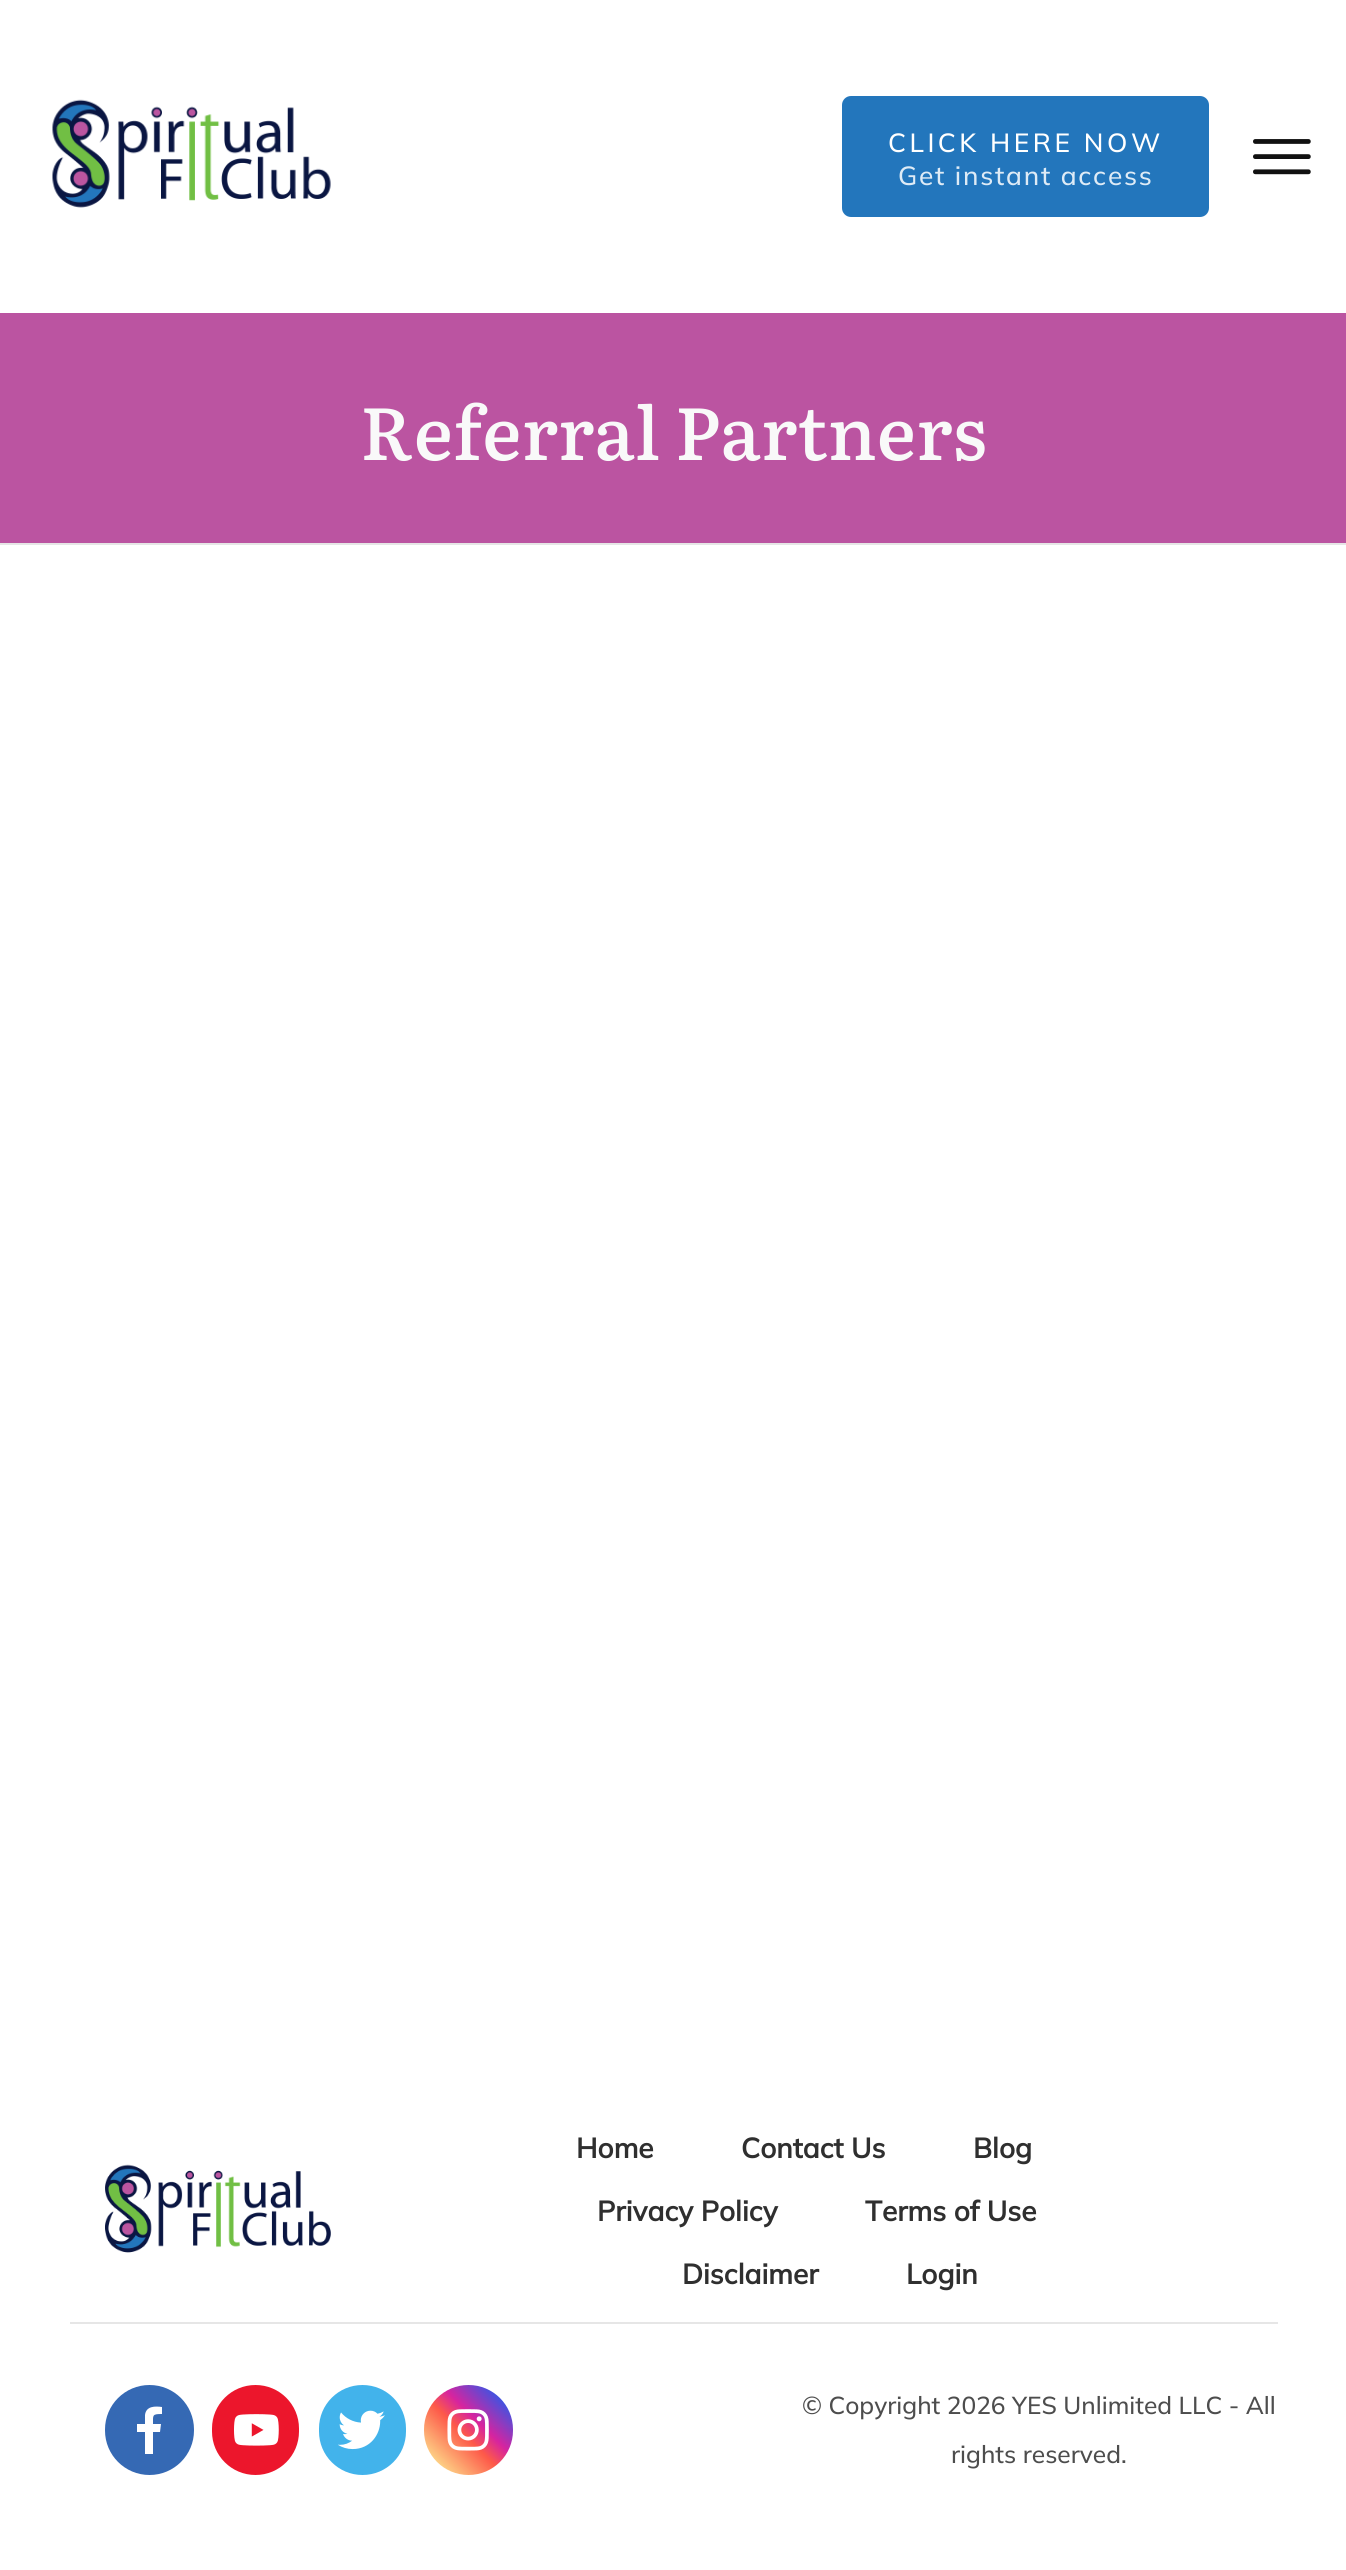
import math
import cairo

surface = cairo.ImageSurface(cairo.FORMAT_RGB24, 1346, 2570)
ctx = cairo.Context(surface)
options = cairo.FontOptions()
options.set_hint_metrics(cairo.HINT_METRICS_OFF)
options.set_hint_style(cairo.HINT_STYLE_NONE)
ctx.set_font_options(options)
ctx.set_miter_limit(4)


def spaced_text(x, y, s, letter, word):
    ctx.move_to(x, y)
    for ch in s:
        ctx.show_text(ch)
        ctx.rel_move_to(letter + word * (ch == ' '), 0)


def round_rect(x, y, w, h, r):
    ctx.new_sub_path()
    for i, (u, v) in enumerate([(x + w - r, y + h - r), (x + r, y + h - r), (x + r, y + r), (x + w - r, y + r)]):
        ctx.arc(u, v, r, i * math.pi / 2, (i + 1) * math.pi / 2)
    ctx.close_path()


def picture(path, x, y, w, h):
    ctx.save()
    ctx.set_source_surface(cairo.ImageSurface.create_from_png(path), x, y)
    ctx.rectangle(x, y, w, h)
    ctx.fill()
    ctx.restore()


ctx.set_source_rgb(1, 1, 1)
ctx.paint()
picture("img1.png", 52, 99, 279, 109)
ctx.set_source_rgb(0.137, 0.463, 0.737)
round_rect(842, 96, 367, 121, 9)
ctx.fill()
ctx.select_font_face("Mulish ExtraLight")
ctx.set_font_size(26.25)
ctx.set_source_rgb(1, 1, 1)
spaced_text(888, 152, "CLICK HERE NOW", 3.5, 0)
ctx.set_source_rgb(0.871, 0.918, 0.961)
spaced_text(898, 185, "Get instant access", 1.75, 0)
picture("img2.png", 1253, 139, 58, 36)
ctx.set_source_rgb(0.733, 0.329, 0.631)
ctx.rectangle(0, 313, 1346, 230)
ctx.fill()
ctx.set_source_rgb(0.902, 0.902, 0.902)
ctx.rectangle(0, 543, 1346, 2)
ctx.fill()
ctx.select_font_face("Literata Medium")
ctx.set_font_size(73.5)
ctx.set_source_rgb(0.973, 0.973, 0.973)
ctx.move_to(360, 460)
ctx.show_text("Referral Partners")
ctx.set_source_rgb(0.902, 0.902, 0.902)
ctx.rectangle(70, 2322, 1208, 2)
ctx.fill()
picture("img3.png", 105, 2164, 226, 89)
ctx.select_font_face("Mulish", cairo.FONT_SLANT_NORMAL, cairo.FONT_WEIGHT_BOLD)
ctx.set_font_size(28)
ctx.set_source_rgb(0.184, 0.184, 0.184)
ctx.move_to(576, 2158)
ctx.show_text("Home")
ctx.move_to(741, 2158)
ctx.show_text("Contact Us")
ctx.move_to(973, 2158)
ctx.show_text("Blog")
ctx.move_to(597, 2221)
ctx.show_text("Privacy Policy")
ctx.move_to(865, 2221)
ctx.show_text("Terms of Use")
ctx.move_to(682, 2284)
ctx.show_text("Disclaimer")
ctx.move_to(906, 2284)
ctx.show_text("Login")
ctx.set_source_rgb(0.208, 0.412, 0.706)
round_rect(105, 2385, 89, 90, 44.5)
ctx.fill()
ctx.set_source_rgb(1, 1, 1)
ctx.new_path()
ctx.move_to(145, 2454)
ctx.line_to(145, 2432)
ctx.line_to(137, 2432)
ctx.line_to(137, 2424)
ctx.line_to(145, 2424)
ctx.line_to(145, 2415)
ctx.curve_to(146, 2406, 155, 2406, 162, 2407)
ctx.line_to(162, 2414)
ctx.curve_to(152, 2414, 153, 2415, 153, 2424)
ctx.line_to(161, 2424)
ctx.line_to(160, 2432)
ctx.line_to(153, 2432)
ctx.line_to(153, 2454)
ctx.fill()
ctx.set_source_rgb(0.925, 0.086, 0.173)
round_rect(212, 2385, 87, 90, 43.5)
ctx.fill()
picture("img4.png", 234, 2414, 45, 32)
ctx.set_source_rgb(0.259, 0.702, 0.918)
round_rect(319, 2385, 87, 90, 43.5)
ctx.fill()
picture("img5.png", 338, 2410, 47, 40)
gradient = cairo.LinearGradient(424, 2475, 513, 2385)
gradient.add_color_stop_rgba(0, 0.992, 0.957, 0.592, 1)
gradient.add_color_stop_rgba(0.05, 0.992, 0.957, 0.592, 1)
gradient.add_color_stop_rgba(0.45, 0.992, 0.349, 0.286, 1)
gradient.add_color_stop_rgba(0.6, 0.839, 0.141, 0.624, 1)
gradient.add_color_stop_rgba(0.9, 0.157, 0.353, 0.922, 1)
ctx.set_source(gradient)
round_rect(424, 2385, 89, 90, 44.5)
ctx.fill()
picture("img6.png", 447, 2409, 42, 42)
ctx.select_font_face("Mulish ExtraLight")
ctx.set_font_size(24.5)
ctx.set_source_rgb(0.302, 0.302, 0.302)
ctx.move_to(802, 2414)
ctx.show_text("© Copyright 2026 YES Unlimited LLC - All")
ctx.move_to(951, 2463)
ctx.show_text("rights reserved.")
surface.write_to_png("page.png")
